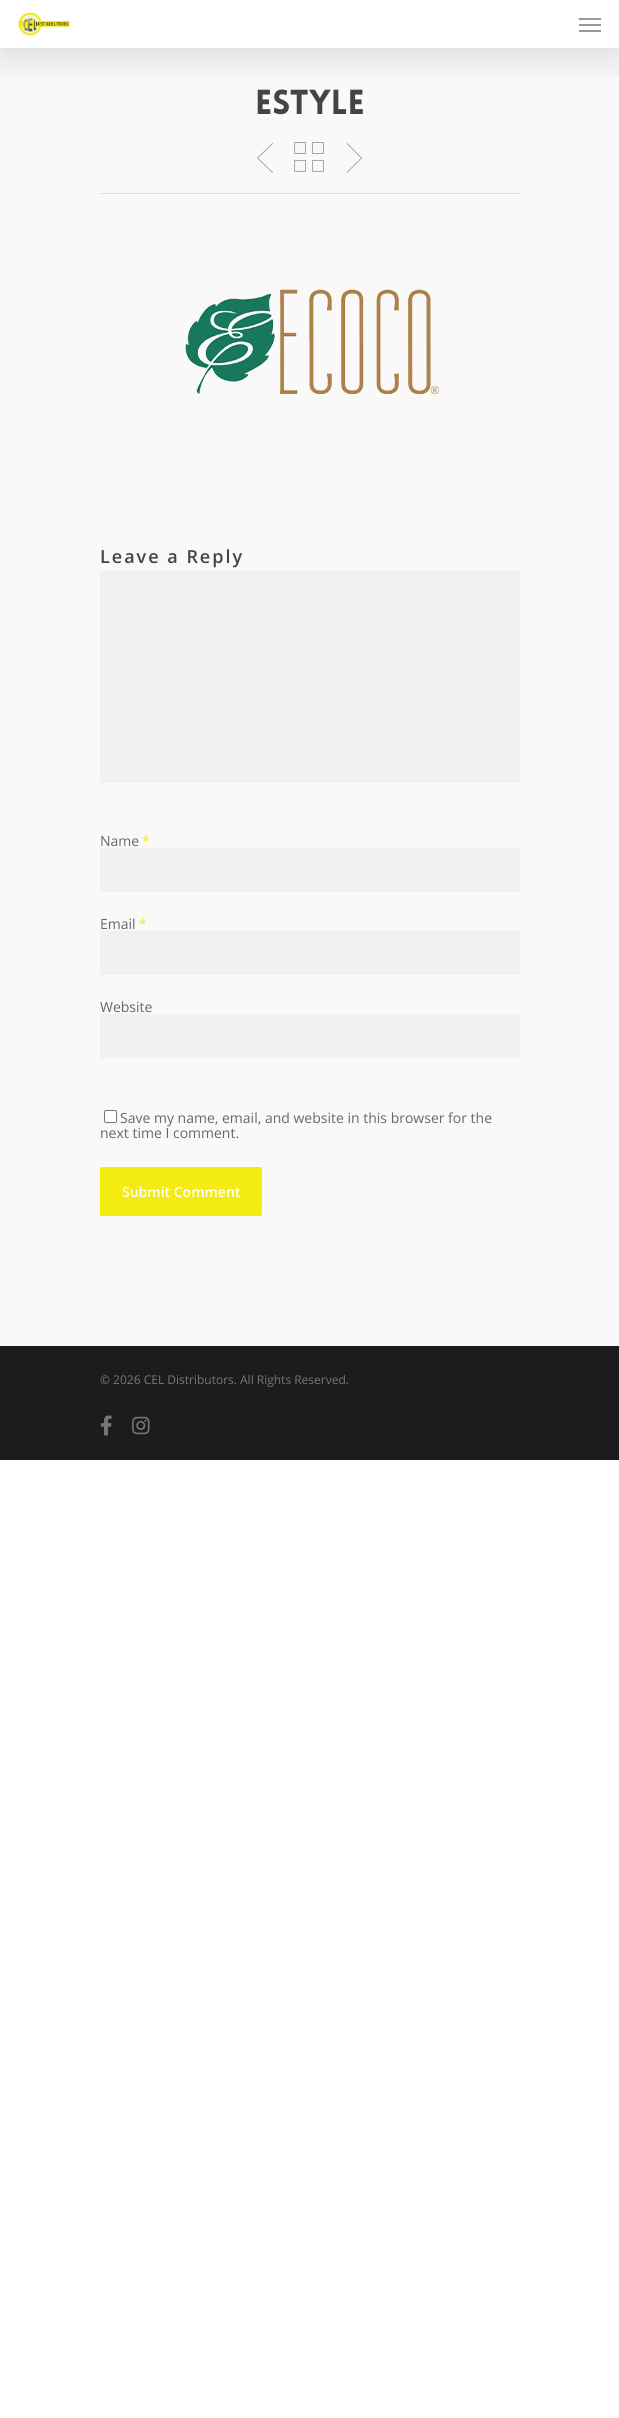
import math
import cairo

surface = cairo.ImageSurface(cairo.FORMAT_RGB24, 619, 2418)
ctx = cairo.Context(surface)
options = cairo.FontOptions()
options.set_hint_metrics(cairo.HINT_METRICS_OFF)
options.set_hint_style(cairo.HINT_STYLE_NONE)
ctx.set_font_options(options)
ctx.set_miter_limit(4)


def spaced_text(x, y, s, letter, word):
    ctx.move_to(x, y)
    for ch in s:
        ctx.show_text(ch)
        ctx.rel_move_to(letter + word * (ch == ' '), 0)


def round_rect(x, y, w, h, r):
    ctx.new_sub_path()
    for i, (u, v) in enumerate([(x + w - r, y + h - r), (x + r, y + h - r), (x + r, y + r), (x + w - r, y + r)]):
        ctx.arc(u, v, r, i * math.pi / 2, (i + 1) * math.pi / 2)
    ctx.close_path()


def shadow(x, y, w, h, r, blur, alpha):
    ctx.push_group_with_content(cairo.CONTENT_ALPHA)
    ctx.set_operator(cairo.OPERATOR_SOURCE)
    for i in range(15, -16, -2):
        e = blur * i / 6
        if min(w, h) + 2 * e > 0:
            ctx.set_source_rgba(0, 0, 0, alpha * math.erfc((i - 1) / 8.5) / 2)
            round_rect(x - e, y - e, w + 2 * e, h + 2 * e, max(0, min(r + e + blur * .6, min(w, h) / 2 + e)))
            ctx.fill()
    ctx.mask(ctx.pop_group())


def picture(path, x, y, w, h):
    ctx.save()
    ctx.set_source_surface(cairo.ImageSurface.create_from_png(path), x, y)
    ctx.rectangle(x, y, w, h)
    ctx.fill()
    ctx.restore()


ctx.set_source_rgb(1, 1, 1)
ctx.paint()
ctx.set_source_rgb(0.973, 0.973, 0.973)
ctx.rectangle(0, 48, 619, 1298)
ctx.fill()
ctx.save()
ctx.rectangle(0, 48, 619, 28)
ctx.clip()
ctx.set_source_rgb(0, 0, 0)
shadow(0, 3, 619, 48, 0, 22.5, 0.15)
ctx.restore()
picture("img1.png", 18, 12, 53, 24)
ctx.set_source_rgb(0.6, 0.6, 0.6)
ctx.rectangle(579, 18, 22, 2)
ctx.fill()
ctx.rectangle(579, 30, 22, 2)
ctx.fill()
ctx.rectangle(579, 24, 22, 2)
ctx.fill()
ctx.set_source_rgb(0.867, 0.867, 0.867)
ctx.rectangle(100, 193, 420, 1)
ctx.fill()
ctx.select_font_face("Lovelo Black")
ctx.set_font_size(34)
ctx.set_source_rgb(0.267, 0.267, 0.267)
ctx.move_to(255, 114)
ctx.show_text("Estyle")
picture("img2.png", 294, 142, 30, 30)
ctx.set_source_rgb(0.533, 0.533, 0.533)
ctx.new_path()
ctx.move_to(273, 143.5)
ctx.line_to(272.5, 143)
ctx.line_to(257, 158)
ctx.line_to(272.5, 173)
ctx.line_to(273, 172.5)
ctx.line_to(258, 158)
ctx.close_path()
ctx.fill()
ctx.new_path()
ctx.move_to(346.5, 143.5)
ctx.line_to(347, 143)
ctx.line_to(362, 158)
ctx.line_to(347, 173)
ctx.line_to(346.5, 172.5)
ctx.line_to(361, 158)
ctx.close_path()
ctx.fill()
picture("img3.png", 185, 289, 254, 105)
ctx.select_font_face("Open Sans SemiBold")
ctx.set_font_size(18)
ctx.set_source_rgb(0.267, 0.267, 0.267)
spaced_text(100, 563, "Leave a Reply", 2, 0)
ctx.set_source_rgb(0.945, 0.945, 0.945)
ctx.rectangle(100, 571, 420, 212)
ctx.fill()
ctx.select_font_face("Open Sans")
ctx.set_font_size(14)
ctx.set_source_rgb(0.404, 0.404, 0.404)
ctx.move_to(100, 846)
ctx.show_text("Name")
ctx.set_source_rgb(0.957, 0.918, 0.063)
ctx.move_to(142, 846)
ctx.show_text("*")
ctx.set_source_rgb(0.945, 0.945, 0.945)
ctx.rectangle(100, 848, 420, 44)
ctx.fill()
ctx.set_source_rgb(0.404, 0.404, 0.404)
ctx.move_to(100, 929)
ctx.show_text("Email")
ctx.set_source_rgb(0.957, 0.918, 0.063)
ctx.move_to(139, 929)
ctx.show_text("*")
ctx.set_source_rgb(0.945, 0.945, 0.945)
ctx.rectangle(100, 931, 420, 44)
ctx.fill()
ctx.set_source_rgb(0.404, 0.404, 0.404)
ctx.move_to(100, 1012)
ctx.show_text("Website")
ctx.set_source_rgb(0.945, 0.945, 0.945)
ctx.rectangle(100, 1014, 420, 44)
ctx.fill()
ctx.set_source_rgb(1, 1, 1)
round_rect(104.5, 1110.5, 12, 12, 1.5)
ctx.fill_preserve()
ctx.set_source_rgb(0.463, 0.463, 0.463)
ctx.set_line_width(1)
ctx.stroke()
ctx.set_source_rgb(0.404, 0.404, 0.404)
ctx.move_to(120, 1123)
ctx.show_text("Save my name, email, and website in this browser for the")
ctx.move_to(100, 1138)
ctx.show_text("next time I comment.")
ctx.set_source_rgb(0.957, 0.918, 0.063)
round_rect(100, 1167, 162, 49, 2)
ctx.fill()
ctx.select_font_face("Open Sans SemiBold")
ctx.set_source_rgb(1, 1, 1)
ctx.move_to(122, 1197)
ctx.show_text("Submit Comment")
ctx.set_source_rgb(0.11, 0.11, 0.11)
ctx.rectangle(0, 1346, 619, 114)
ctx.fill()
ctx.select_font_face("Open Sans")
ctx.set_font_size(12)
ctx.set_source_rgb(0.467, 0.467, 0.467)
ctx.move_to(100, 1384)
ctx.show_text("© 2026 CEL Distributors. All Rights Reserved.")
picture("img4.png", 100, 1415, 12, 21)
picture("img5.png", 132, 1416, 18, 19)
surface.write_to_png("page.png")
